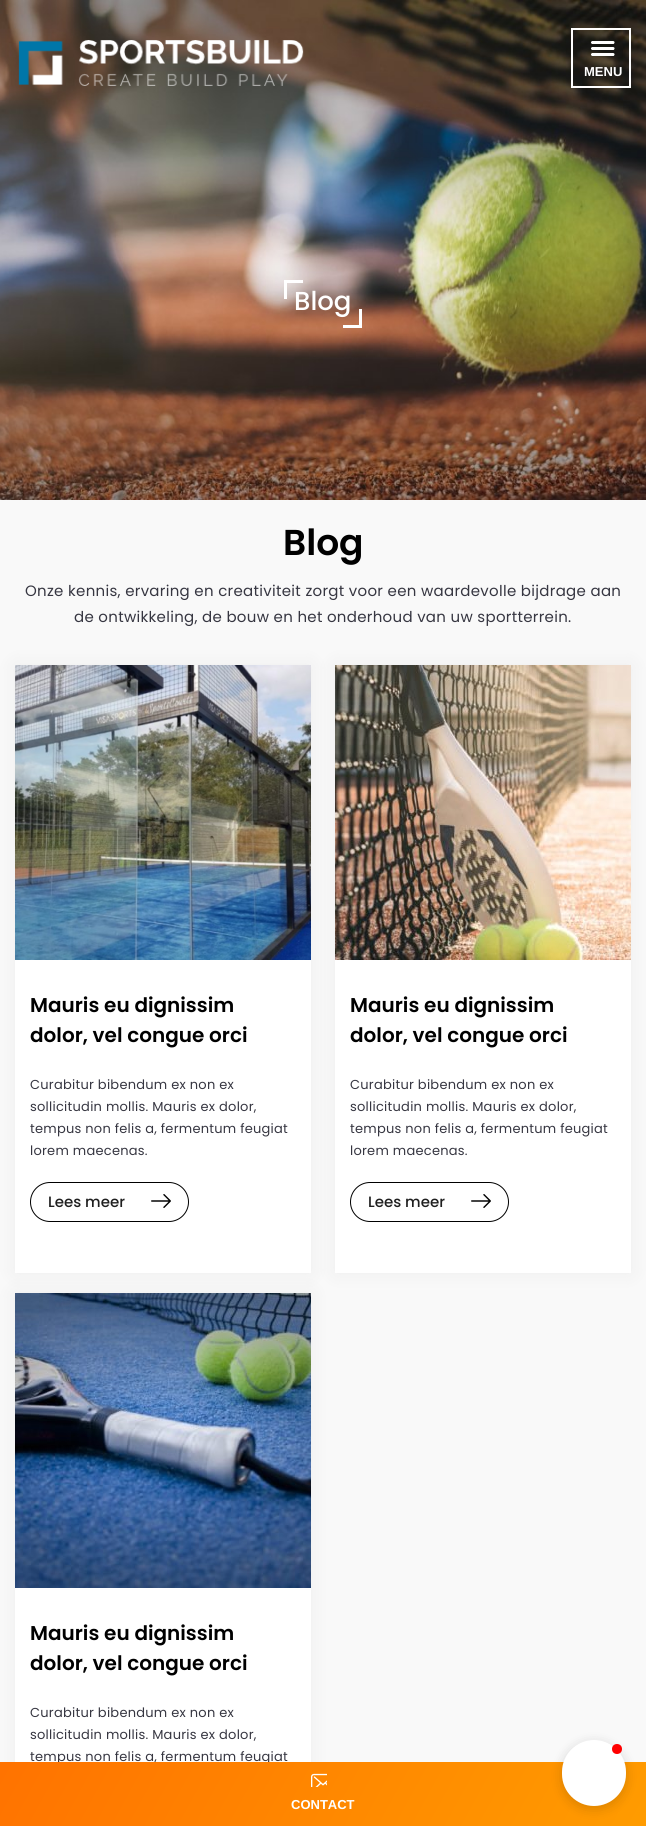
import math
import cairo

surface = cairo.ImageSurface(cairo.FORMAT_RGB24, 646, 1826)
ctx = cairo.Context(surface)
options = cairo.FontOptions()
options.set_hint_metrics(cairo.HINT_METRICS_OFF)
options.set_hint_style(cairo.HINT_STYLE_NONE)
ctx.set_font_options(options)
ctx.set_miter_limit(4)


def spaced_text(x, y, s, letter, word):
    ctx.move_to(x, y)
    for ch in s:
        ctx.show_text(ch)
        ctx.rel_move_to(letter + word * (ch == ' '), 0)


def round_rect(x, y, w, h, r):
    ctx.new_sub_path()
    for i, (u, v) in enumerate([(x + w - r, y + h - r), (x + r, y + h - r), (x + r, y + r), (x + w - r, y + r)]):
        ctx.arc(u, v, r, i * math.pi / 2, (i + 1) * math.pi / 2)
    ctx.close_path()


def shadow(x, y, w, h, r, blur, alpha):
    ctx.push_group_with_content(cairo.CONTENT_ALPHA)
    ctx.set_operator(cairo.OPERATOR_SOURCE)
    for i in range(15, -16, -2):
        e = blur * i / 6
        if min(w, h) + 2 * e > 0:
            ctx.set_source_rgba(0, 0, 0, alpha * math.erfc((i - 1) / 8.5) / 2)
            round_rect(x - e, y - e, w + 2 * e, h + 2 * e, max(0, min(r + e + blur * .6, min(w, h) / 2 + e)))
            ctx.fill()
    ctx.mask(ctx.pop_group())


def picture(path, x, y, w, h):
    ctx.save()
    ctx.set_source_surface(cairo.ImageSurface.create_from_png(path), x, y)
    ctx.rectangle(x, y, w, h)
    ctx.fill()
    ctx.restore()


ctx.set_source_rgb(0.973, 0.973, 0.973)
ctx.paint()
picture("img3.png", 0, 0, 646, 500)
picture("img1.png", 18, 40, 286, 46)
ctx.rectangle(572, 29, 58, 58)
ctx.set_source_rgb(1, 1, 1)
ctx.stroke()
picture("img2.png", 591, 41, 24, 15)
ctx.select_font_face("Liberation Sans", cairo.FONT_SLANT_NORMAL, cairo.FONT_WEIGHT_BOLD)
ctx.set_font_size(13)
ctx.move_to(584, 76)
ctx.show_text("MENU")
ctx.rectangle(284, 280, 19, 3)
ctx.fill()
ctx.rectangle(284, 280, 3, 19)
ctx.fill()
ctx.select_font_face("Poppins Medium")
ctx.set_font_size(26)
ctx.move_to(294, 310)
ctx.show_text("Blog")
ctx.rectangle(343, 325, 19, 3)
ctx.fill()
ctx.rectangle(359, 309, 3, 19)
ctx.fill()
ctx.select_font_face("Poppins SemiBold")
ctx.set_font_size(36)
ctx.set_source_rgb(0, 0, 0)
ctx.move_to(283, 555)
ctx.show_text("Blog")
ctx.select_font_face("Poppins")
ctx.set_font_size(15)
ctx.set_source_rgb(0.212, 0.212, 0.255)
spaced_text(25, 596, "Onze kennis, ervaring en creativiteit zorgt voor een waardevolle bijdrage aan", 0.3, 0)
spaced_text(74, 622, "de ontwikkeling, de bouw en het onderhoud van uw sportterrein.", 0.3, 0)
ctx.set_source_rgb(0, 0, 0)
shadow(15, 665, 296, 608, 0, 10, 0.05)
picture("img4.png", 15, 665, 296, 295)
ctx.set_source_rgb(1, 1, 1)
ctx.rectangle(15, 960, 296, 313)
ctx.fill()
ctx.select_font_face("Poppins SemiBold")
ctx.set_font_size(20)
ctx.set_source_rgb(0, 0, 0)
ctx.move_to(30, 1012)
ctx.show_text("Mauris eu dignissim")
ctx.move_to(30, 1042)
ctx.show_text("dolor, vel congue orci")
ctx.select_font_face("Poppins")
ctx.set_font_size(13)
ctx.set_source_rgb(0.212, 0.212, 0.255)
spaced_text(30, 1089, "Curabitur bibendum ex non ex", 0.25, 0)
spaced_text(30, 1111, "sollicitudin mollis. Mauris ex dolor,", 0.25, 0)
spaced_text(30, 1133, "tempus non felis a, fermentum feugiat", 0.25, 0)
spaced_text(30, 1155, "lorem maecenas.", 0.25, 0)
round_rect(30.5, 1182.5, 158, 39, 19.5)
ctx.set_source_rgb(0, 0, 0)
ctx.set_line_width(1)
ctx.stroke()
ctx.select_font_face("Poppins Medium")
ctx.set_font_size(15)
ctx.set_source_rgb(0.122, 0.122, 0.122)
ctx.move_to(48, 1207)
ctx.show_text("Lees meer")
picture("img5.png", 151, 1194, 20, 14)
ctx.set_source_rgb(0, 0, 0)
shadow(335, 665, 296, 608, 0, 10, 0.05)
picture("img6.png", 335, 665, 296, 295)
ctx.set_source_rgb(1, 1, 1)
ctx.rectangle(335, 960, 296, 313)
ctx.fill()
ctx.select_font_face("Poppins SemiBold")
ctx.set_font_size(20)
ctx.set_source_rgb(0, 0, 0)
ctx.move_to(350, 1012)
ctx.show_text("Mauris eu dignissim")
ctx.move_to(350, 1042)
ctx.show_text("dolor, vel congue orci")
ctx.select_font_face("Poppins")
ctx.set_font_size(13)
ctx.set_source_rgb(0.212, 0.212, 0.255)
spaced_text(350, 1089, "Curabitur bibendum ex non ex", 0.25, 0)
spaced_text(350, 1111, "sollicitudin mollis. Mauris ex dolor,", 0.25, 0)
spaced_text(350, 1133, "tempus non felis a, fermentum feugiat", 0.25, 0)
spaced_text(350, 1155, "lorem maecenas.", 0.25, 0)
round_rect(350.5, 1182.5, 158, 39, 19.5)
ctx.set_source_rgb(0, 0, 0)
ctx.stroke()
ctx.select_font_face("Poppins Medium")
ctx.set_font_size(15)
ctx.set_source_rgb(0.122, 0.122, 0.122)
ctx.move_to(368, 1207)
ctx.show_text("Lees meer")
picture("img5.png", 471, 1194, 20, 14)
ctx.set_source_rgb(0, 0, 0)
shadow(15, 1293, 296, 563, 0, 10, 0.05)
picture("img7.png", 15, 1293, 296, 295)
ctx.set_source_rgb(1, 1, 1)
ctx.rectangle(15, 1588, 296, 174)
ctx.fill()
ctx.select_font_face("Poppins SemiBold")
ctx.set_font_size(20)
ctx.set_source_rgb(0, 0, 0)
ctx.move_to(30, 1640)
ctx.show_text("Mauris eu dignissim")
ctx.move_to(30, 1670)
ctx.show_text("dolor, vel congue orci")
ctx.select_font_face("Poppins")
ctx.set_font_size(13)
ctx.set_source_rgb(0.212, 0.212, 0.255)
spaced_text(30, 1717, "Curabitur bibendum ex non ex", 0.25, 0)
spaced_text(30, 1739, "sollicitudin mollis. Mauris ex dolor,", 0.25, 0)
spaced_text(30, 1761, "tempus non felis a, fermentum feugiat", 0.25, 0)
gradient = cairo.LinearGradient(-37, 1597, 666, 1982)
gradient.add_color_stop_rgba(0, 1, 0.42, 0, 1)
gradient.add_color_stop_rgba(1, 1, 0.635, 0, 1)
ctx.set_source(gradient)
ctx.rectangle(0, 1762, 646, 64)
ctx.fill()
picture("img8.png", 311, 1773, 16, 14)
ctx.select_font_face("Liberation Sans", cairo.FONT_SLANT_NORMAL, cairo.FONT_WEIGHT_BOLD)
ctx.set_source_rgb(1, 1, 1)
ctx.move_to(291, 1809)
ctx.show_text("CONTACT")
ctx.set_source_rgb(0, 0, 0)
shadow(562, 1743, 64, 66, 32, 6, 0.15)
ctx.set_source_rgb(1, 1, 1)
round_rect(562, 1740, 64, 66, 32)
ctx.fill()
ctx.set_source_rgb(1, 0, 0)
ctx.arc(617, 1749, 5, 0, 2 * math.pi)
ctx.fill()
surface.write_to_png("page.png")
